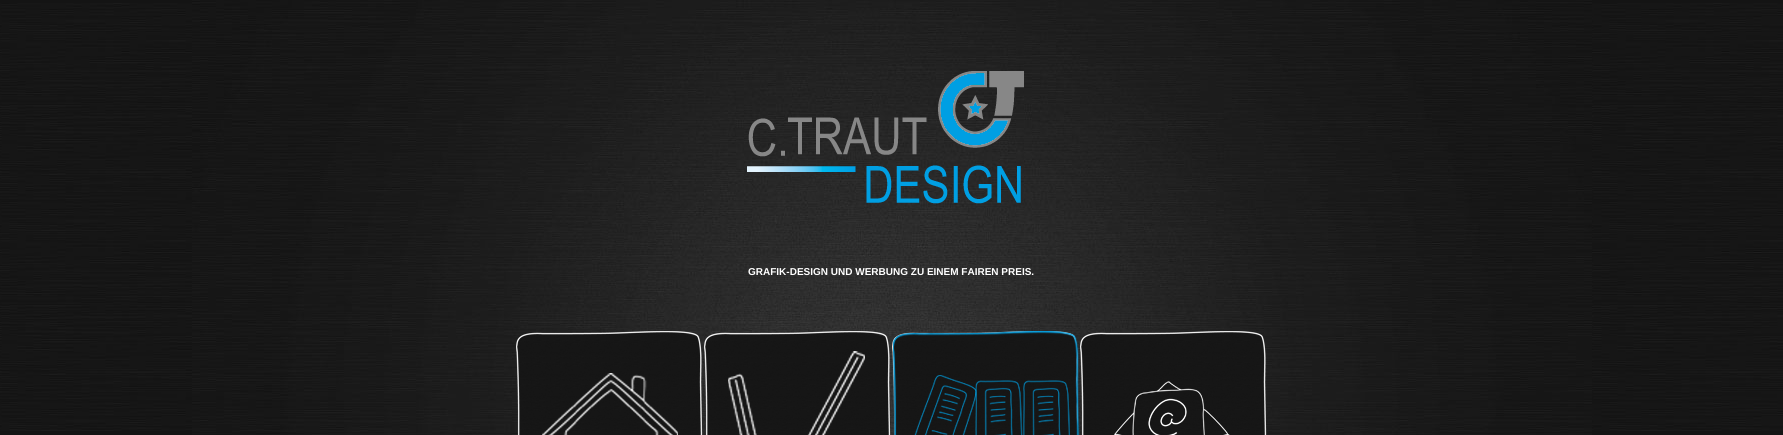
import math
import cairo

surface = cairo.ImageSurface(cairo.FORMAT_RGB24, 1783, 435)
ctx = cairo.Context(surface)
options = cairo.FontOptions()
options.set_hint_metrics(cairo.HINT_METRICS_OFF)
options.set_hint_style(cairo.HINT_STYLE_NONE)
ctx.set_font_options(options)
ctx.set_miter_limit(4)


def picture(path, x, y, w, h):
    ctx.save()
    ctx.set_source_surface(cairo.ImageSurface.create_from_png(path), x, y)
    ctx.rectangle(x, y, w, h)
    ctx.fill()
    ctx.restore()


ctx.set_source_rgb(0.082, 0.082, 0.082)
ctx.paint()
picture("img1.png", 0, 3, 1783, 428)
picture("img2.png", 192, 0, 1400, 435)
picture("img3.png", 747, 71, 277, 133)
ctx.select_font_face("Liberation Sans", cairo.FONT_SLANT_NORMAL, cairo.FONT_WEIGHT_BOLD)
ctx.set_font_size(10)
ctx.set_source_rgb(1, 1, 1)
ctx.move_to(748, 275)
ctx.show_text("GRAFIK-DESIGN UND WERBUNG ZU EINEM FAIREN PREIS.")
picture("img4.png", 516, 331, 187, 104)
picture("img5.png", 704, 331, 187, 104)
picture("img6.png", 892, 331, 187, 104)
picture("img7.png", 892, 331, 188, 104)
picture("img8.png", 1080, 331, 187, 104)
surface.write_to_png("page.png")
